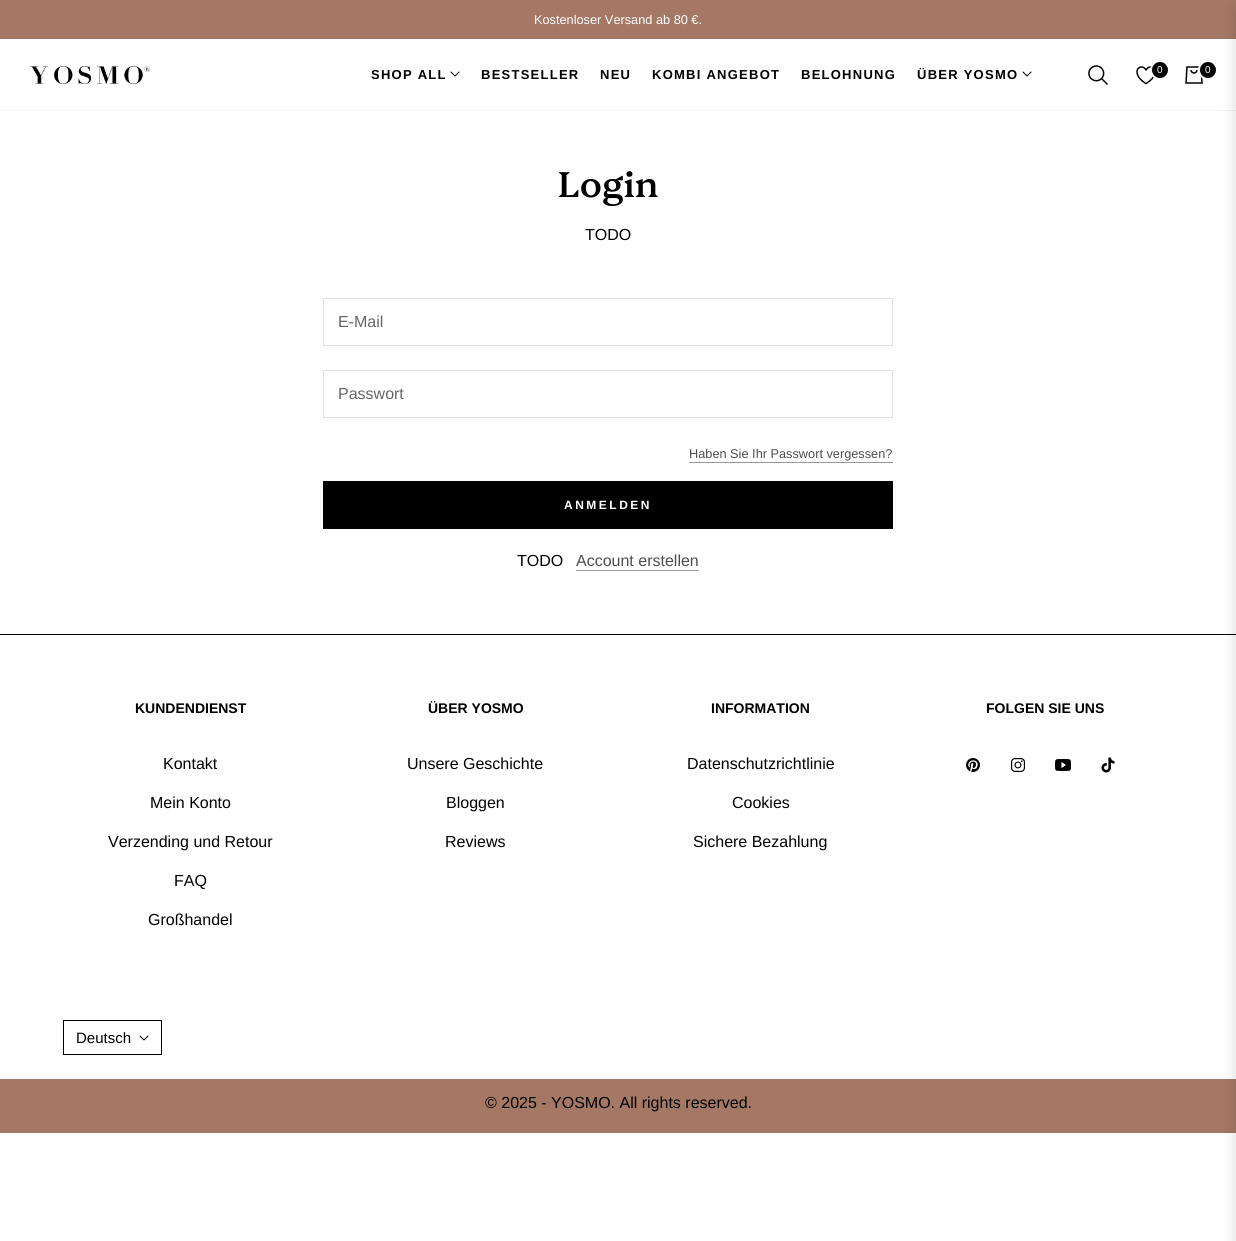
import math
import cairo

surface = cairo.ImageSurface(cairo.FORMAT_RGB24, 1236, 1241)
ctx = cairo.Context(surface)
options = cairo.FontOptions()
options.set_hint_metrics(cairo.HINT_METRICS_OFF)
options.set_hint_style(cairo.HINT_STYLE_NONE)
ctx.set_font_options(options)
ctx.set_miter_limit(4)


def spaced_text(x, y, s, letter, word):
    ctx.move_to(x, y)
    for ch in s:
        ctx.show_text(ch)
        ctx.rel_move_to(letter + word * (ch == ' '), 0)


def round_rect(x, y, w, h, r):
    ctx.new_sub_path()
    for i, (u, v) in enumerate([(x + w - r, y + h - r), (x + r, y + h - r), (x + r, y + r), (x + w - r, y + r)]):
        ctx.arc(u, v, r, i * math.pi / 2, (i + 1) * math.pi / 2)
    ctx.close_path()


def shadow(x, y, w, h, r, blur, alpha):
    ctx.push_group_with_content(cairo.CONTENT_ALPHA)
    ctx.set_operator(cairo.OPERATOR_SOURCE)
    for i in range(15, -16, -2):
        e = blur * i / 6
        if min(w, h) + 2 * e > 0:
            ctx.set_source_rgba(0, 0, 0, alpha * math.erfc((i - 1) / 8.5) / 2)
            round_rect(x - e, y - e, w + 2 * e, h + 2 * e, max(0, min(r + e + blur * .6, min(w, h) / 2 + e)))
            ctx.fill()
    ctx.mask(ctx.pop_group())


def picture(path, x, y, w, h):
    ctx.save()
    ctx.set_source_surface(cairo.ImageSurface.create_from_png(path), x, y)
    ctx.rectangle(x, y, w, h)
    ctx.fill()
    ctx.restore()


ctx.set_source_rgb(1, 1, 1)
ctx.paint()
ctx.set_source_rgb(0.643, 0.471, 0.392)
ctx.rectangle(0, 0, 1236, 39)
ctx.fill()
ctx.select_font_face("Liberation Sans")
ctx.set_font_size(12.75)
ctx.set_source_rgb(1, 1, 1)
ctx.move_to(534, 24)
ctx.show_text("Kostenloser Versand ab 80 €.")
ctx.rectangle(-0.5, 38.5, 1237, 72)
ctx.set_source_rgba(0, 0, 0, 0.05)
ctx.set_line_width(1)
ctx.stroke()
picture("img1.png", 30, 66, 120, 18)
ctx.select_font_face("Liberation Sans", cairo.FONT_SLANT_NORMAL, cairo.FONT_WEIGHT_BOLD)
ctx.set_font_size(13)
ctx.set_source_rgb(0, 0, 0)
spaced_text(371, 79, "SHOP ALL", 1.25, 0)
picture("img2.png", 450, 71, 10, 6)
spaced_text(481, 79, "BESTSELLER", 1.25, 0)
spaced_text(600, 79, "NEU", 1.25, 0)
spaced_text(652, 79, "KOMBI ANGEBOT", 1.25, 0)
spaced_text(801, 79, "BELOHNUNG", 1.25, 0)
spaced_text(917, 79, "ÜBER YOSMO", 1.25, 0)
picture("img2.png", 1022, 71, 10, 6)
picture("img3.png", 1088, 65, 20, 20)
picture("img4.png", 1136, 66, 18, 19)
ctx.arc(1160, 70, 9, 0, 2 * math.pi)
ctx.fill_preserve()
ctx.set_source_rgb(1, 1, 1)
ctx.set_line_width(2)
ctx.stroke()
ctx.select_font_face("Liberation Sans")
ctx.set_font_size(10)
spaced_text(1157, 73, "0", 1.25, 0)
picture("img5.png", 1185, 66, 18, 18)
ctx.set_source_rgb(0, 0, 0)
ctx.arc(1208, 70, 9, 0, 2 * math.pi)
ctx.fill_preserve()
ctx.set_source_rgb(1, 1, 1)
ctx.stroke()
spaced_text(1205, 73, "0", 1.25, 0)
ctx.set_source_rgb(0, 0, 0)
ctx.rectangle(0, 634, 1236, 1)
ctx.fill()
ctx.set_source_rgb(0.643, 0.471, 0.392)
ctx.rectangle(0, 1079, 1236, 54)
ctx.fill()
ctx.set_source_rgb(0, 0, 0)
shadow(1236, 8, 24, 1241, 0, 8, 0.15)
ctx.select_font_face("Platypi Medium")
ctx.set_font_size(36)
ctx.set_source_rgb(0, 0, 0)
ctx.move_to(558, 197)
ctx.show_text("Login")
ctx.select_font_face("Liberation Sans")
ctx.set_font_size(16)
ctx.move_to(585, 240)
ctx.show_text("TODO")
ctx.rectangle(323.5, 298.5, 569, 47)
ctx.set_source_rgb(0.871, 0.886, 0.902)
ctx.set_line_width(1)
ctx.stroke()
ctx.set_source_rgb(0.4, 0.4, 0.4)
ctx.move_to(338, 327)
ctx.show_text("E-Mail")
ctx.rectangle(323.5, 370.5, 569, 47)
ctx.set_source_rgb(0.871, 0.886, 0.902)
ctx.stroke()
ctx.set_source_rgb(0.4, 0.4, 0.4)
ctx.move_to(338, 399)
ctx.show_text("Passwort")
ctx.set_font_size(12.75)
ctx.set_source_rgb(0.302, 0.302, 0.302)
ctx.move_to(689, 458)
ctx.show_text("Haben Sie Ihr Passwort vergessen?")
ctx.set_source_rgb(0.6, 0.6, 0.6)
ctx.rectangle(689, 462, 204, 1)
ctx.fill()
ctx.set_source_rgb(0, 0, 0)
ctx.rectangle(323, 481, 570, 48)
ctx.fill()
ctx.select_font_face("Liberation Sans", cairo.FONT_SLANT_NORMAL, cairo.FONT_WEIGHT_BOLD)
ctx.set_font_size(12)
ctx.set_source_rgb(1, 1, 1)
spaced_text(564, 509, "ANMELDEN", 2.5, 0)
ctx.select_font_face("Liberation Sans")
ctx.set_font_size(16)
ctx.set_source_rgb(0, 0, 0)
ctx.move_to(517, 566)
ctx.show_text("TODO")
ctx.set_source_rgb(0.302, 0.302, 0.302)
ctx.move_to(576, 566)
ctx.show_text("Account erstellen")
ctx.set_source_rgb(0.6, 0.6, 0.6)
ctx.rectangle(576, 570, 123, 1)
ctx.fill()
ctx.select_font_face("Liberation Sans", cairo.FONT_SLANT_NORMAL, cairo.FONT_WEIGHT_BOLD)
ctx.set_font_size(14)
ctx.set_source_rgb(0, 0, 0)
ctx.move_to(135, 713)
ctx.show_text("KUNDENDIENST")
ctx.select_font_face("Liberation Sans")
ctx.set_font_size(16)
ctx.move_to(163, 769)
ctx.show_text("Kontakt")
ctx.move_to(150, 808)
ctx.show_text("Mein Konto")
ctx.move_to(108, 847)
ctx.show_text("Verzending und Retour")
ctx.move_to(174, 886)
ctx.show_text("FAQ")
ctx.move_to(148, 925)
ctx.show_text("Großhandel")
ctx.select_font_face("Liberation Sans", cairo.FONT_SLANT_NORMAL, cairo.FONT_WEIGHT_BOLD)
ctx.set_font_size(14)
ctx.move_to(428, 713)
ctx.show_text("ÜBER YOSMO")
ctx.select_font_face("Liberation Sans")
ctx.set_font_size(16)
ctx.move_to(407, 769)
ctx.show_text("Unsere Geschichte")
ctx.move_to(446, 808)
ctx.show_text("Bloggen")
ctx.move_to(445, 847)
ctx.show_text("Reviews")
ctx.select_font_face("Liberation Sans", cairo.FONT_SLANT_NORMAL, cairo.FONT_WEIGHT_BOLD)
ctx.set_font_size(14)
ctx.move_to(711, 713)
ctx.show_text("INFORMATION")
ctx.select_font_face("Liberation Sans")
ctx.set_font_size(16)
ctx.move_to(687, 769)
ctx.show_text("Datenschutzrichtlinie")
ctx.move_to(732, 808)
ctx.show_text("Cookies")
ctx.move_to(693, 847)
ctx.show_text("Sichere Bezahlung")
ctx.select_font_face("Liberation Sans", cairo.FONT_SLANT_NORMAL, cairo.FONT_WEIGHT_BOLD)
ctx.set_font_size(14)
ctx.move_to(986, 713)
ctx.show_text("FOLGEN SIE UNS")
picture("img6.png", 966, 758, 14, 14)
picture("img7.png", 1011, 758, 14, 14)
picture("img8.png", 1055, 759, 16, 12)
picture("img9.png", 1101, 757, 14, 16)
ctx.rectangle(63.5, 1020.5, 98, 34)
ctx.stroke()
ctx.select_font_face("Liberation Sans")
ctx.set_font_size(15)
ctx.move_to(76, 1043)
ctx.show_text("Deutsch")
picture("img2.png", 139, 1035, 10, 6)
ctx.set_font_size(16)
ctx.move_to(485, 1108)
ctx.show_text("© 2025 - YOSMO. All rights reserved.")
surface.write_to_png("page.png")
